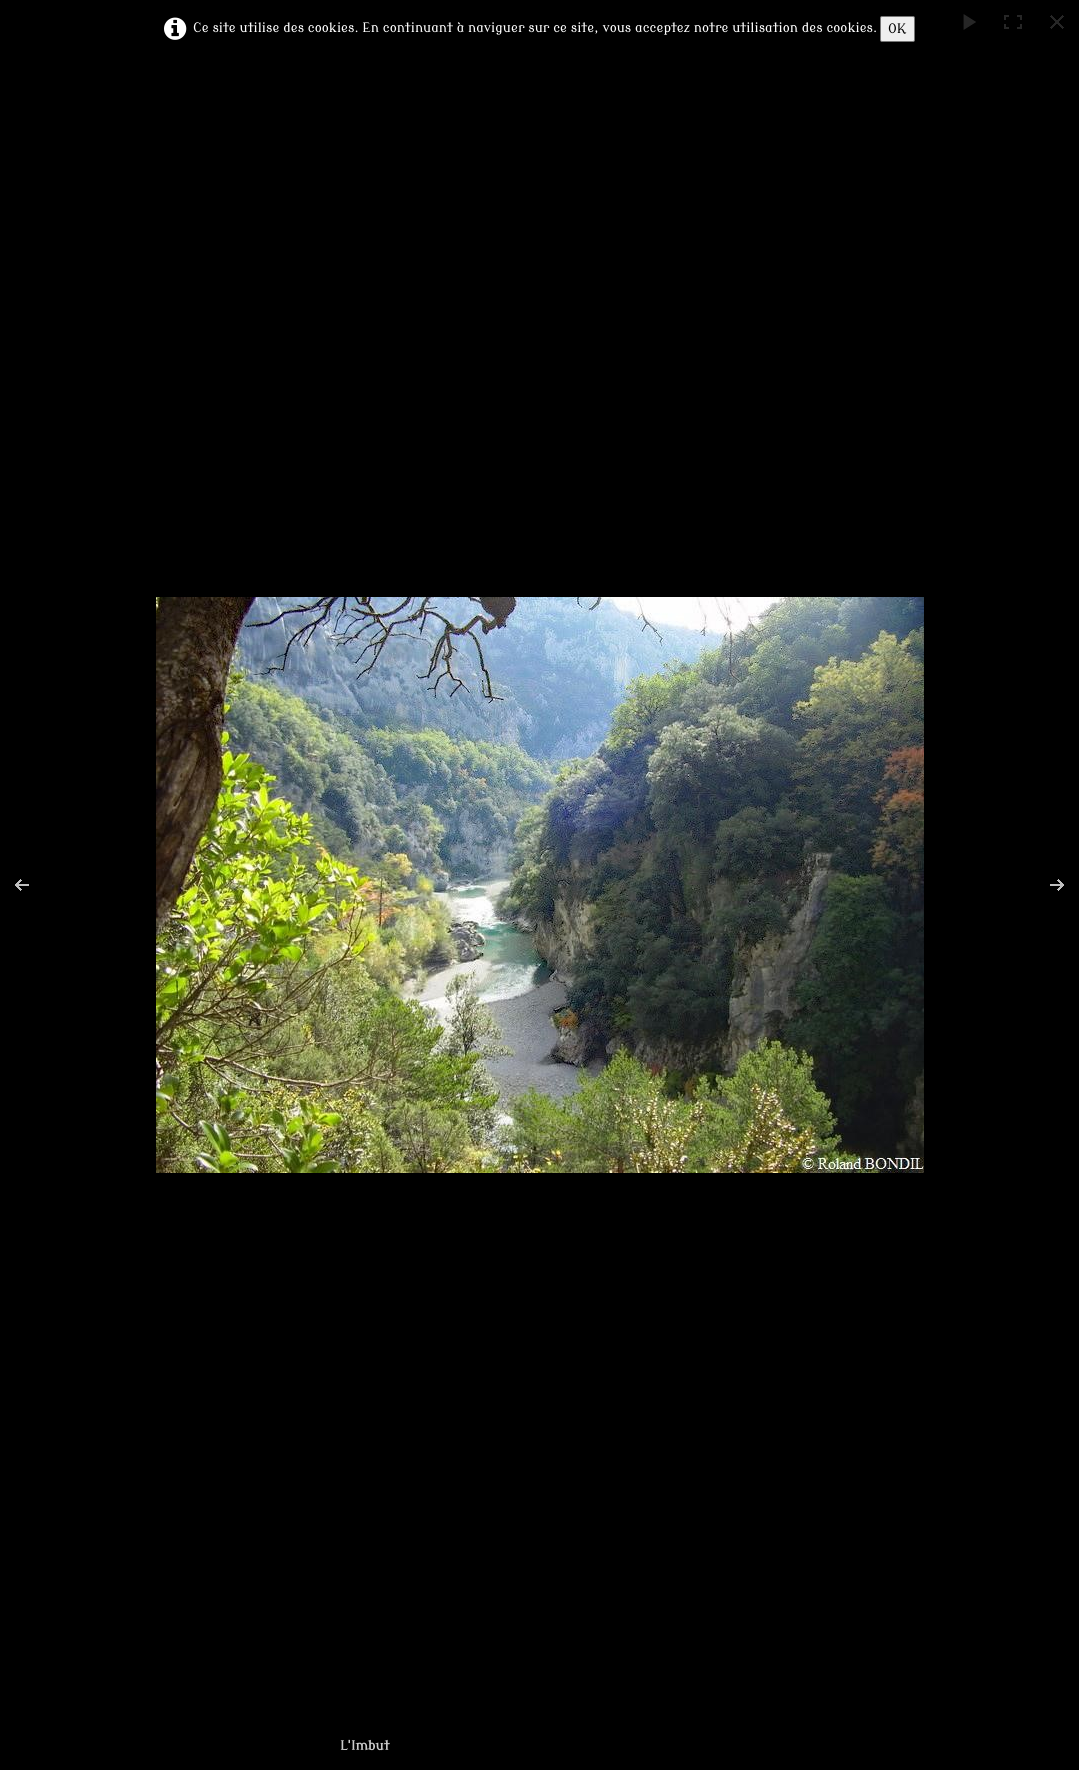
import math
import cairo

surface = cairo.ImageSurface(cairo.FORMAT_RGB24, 1079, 1770)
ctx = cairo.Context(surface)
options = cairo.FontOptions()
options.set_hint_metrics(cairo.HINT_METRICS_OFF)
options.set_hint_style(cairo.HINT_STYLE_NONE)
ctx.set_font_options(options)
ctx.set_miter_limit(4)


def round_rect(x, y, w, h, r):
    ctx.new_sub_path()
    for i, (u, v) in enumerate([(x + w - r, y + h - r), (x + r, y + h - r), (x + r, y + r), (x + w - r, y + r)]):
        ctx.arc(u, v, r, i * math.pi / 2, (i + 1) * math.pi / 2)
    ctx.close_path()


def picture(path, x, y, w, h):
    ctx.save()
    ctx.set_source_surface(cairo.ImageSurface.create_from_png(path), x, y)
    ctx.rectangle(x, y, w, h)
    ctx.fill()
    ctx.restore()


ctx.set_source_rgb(0, 0, 0)
ctx.paint()
picture("img3.png", 963, 14, 13, 16)
picture("img4.png", 1004, 15, 18, 14)
picture("img5.png", 1050, 15, 14, 14)
ctx.set_source_rgba(0, 0, 0, 0.8)
ctx.rectangle(963, 14, 101, 16)
ctx.fill()
picture("img1.png", 164, 17, 23, 23)
ctx.select_font_face("Modern Antiqua")
ctx.set_font_size(13)
ctx.set_source_rgb(1, 1, 1)
ctx.move_to(193, 32)
ctx.show_text("Ce site utilise des cookies. En continuant à naviguer sur ce site, vous acceptez notre utilisation des cookies.")
ctx.set_source_rgb(0.937, 0.937, 0.937)
round_rect(880.5, 16.5, 34, 25, 1.5)
ctx.fill_preserve()
ctx.set_source_rgb(0.463, 0.463, 0.463)
ctx.set_line_width(1)
ctx.stroke()
ctx.set_source_rgb(0, 0, 0)
ctx.move_to(888, 33)
ctx.show_text("OK")
picture("img2.png", 156, 597, 768, 576)
picture("img6.png", 15, 879, 14, 12)
picture("img7.png", 1050, 879, 14, 12)
ctx.select_font_face("Modern Antiqua", cairo.FONT_SLANT_NORMAL, cairo.FONT_WEIGHT_BOLD)
ctx.set_source_rgb(0.8, 0.8, 0.8)
ctx.move_to(340, 1750)
ctx.show_text("L'Imbut")
surface.write_to_png("page.png")
